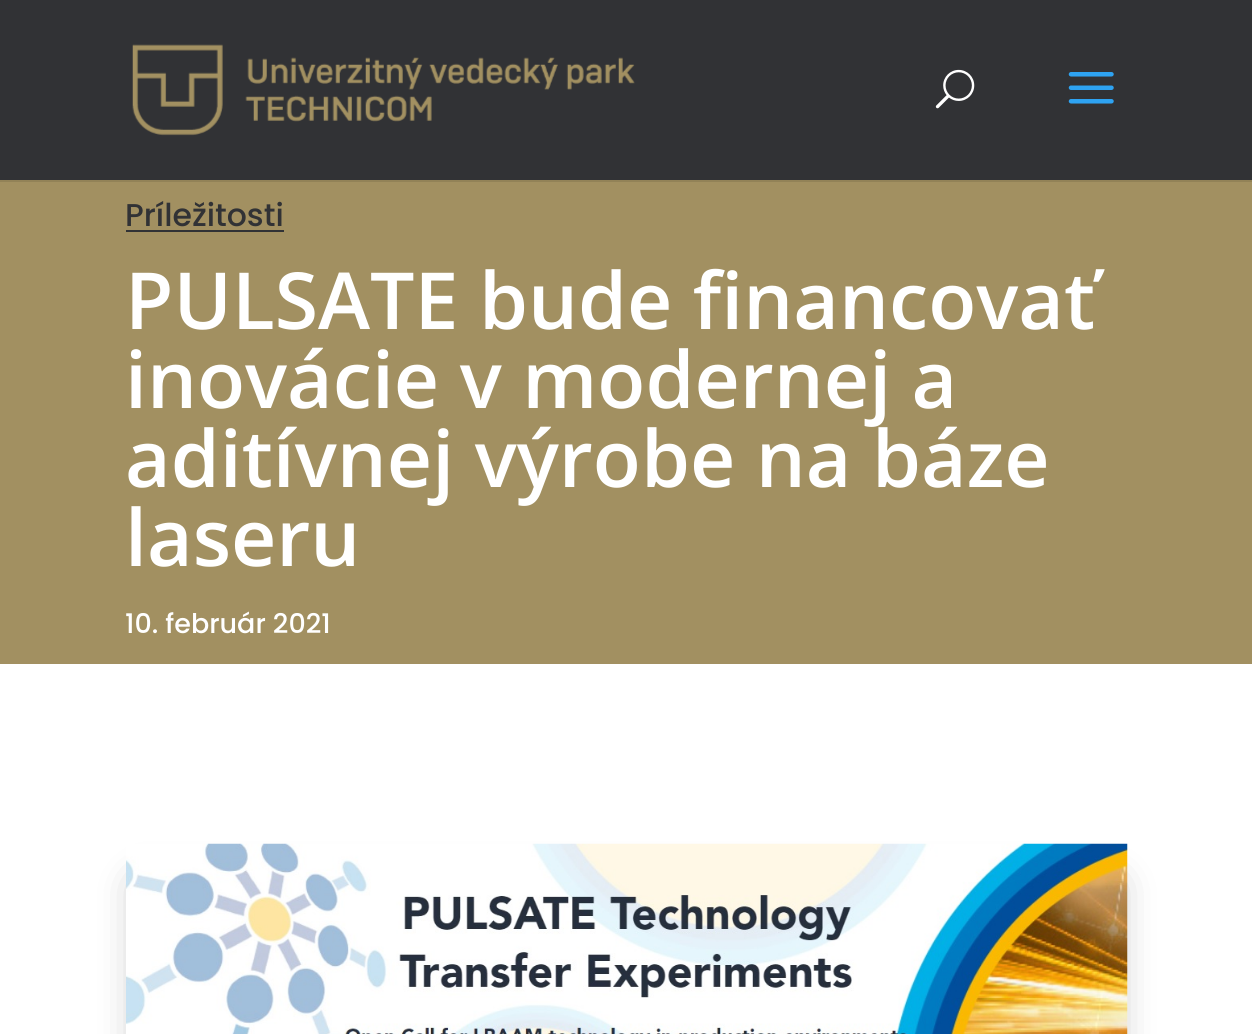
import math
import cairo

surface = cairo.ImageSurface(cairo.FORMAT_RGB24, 1252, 1034)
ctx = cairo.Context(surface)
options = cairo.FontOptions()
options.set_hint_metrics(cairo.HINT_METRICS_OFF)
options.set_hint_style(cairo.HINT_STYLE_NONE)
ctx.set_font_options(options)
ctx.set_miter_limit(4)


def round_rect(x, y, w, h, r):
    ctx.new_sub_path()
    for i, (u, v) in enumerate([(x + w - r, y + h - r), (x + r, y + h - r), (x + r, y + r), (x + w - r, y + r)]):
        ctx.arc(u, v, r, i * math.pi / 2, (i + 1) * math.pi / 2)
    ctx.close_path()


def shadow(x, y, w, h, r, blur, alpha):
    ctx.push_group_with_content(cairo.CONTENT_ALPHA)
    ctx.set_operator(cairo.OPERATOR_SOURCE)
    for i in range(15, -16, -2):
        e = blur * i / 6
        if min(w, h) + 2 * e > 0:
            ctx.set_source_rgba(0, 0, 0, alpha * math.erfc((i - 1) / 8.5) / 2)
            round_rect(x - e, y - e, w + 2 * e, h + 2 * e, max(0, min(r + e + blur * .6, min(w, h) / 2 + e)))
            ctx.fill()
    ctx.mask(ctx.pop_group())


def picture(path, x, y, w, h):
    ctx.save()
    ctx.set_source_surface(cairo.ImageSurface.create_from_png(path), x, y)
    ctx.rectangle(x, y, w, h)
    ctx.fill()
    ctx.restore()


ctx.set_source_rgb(1, 1, 1)
ctx.paint()
ctx.set_source_rgb(0.573, 0.51, 0.341)
ctx.rectangle(0, 180, 1252, 2)
ctx.fill()
ctx.set_source_rgb(0.192, 0.196, 0.208)
ctx.rectangle(0, 0, 1252, 180)
ctx.fill()
picture("img1.png", 132, 44, 503, 92)
picture("img2.png", 935, 69, 40, 40)
picture("img3.png", 1068, 72, 46, 32)
ctx.set_source_rgb(0.635, 0.565, 0.38)
ctx.rectangle(0, 182, 1252, 482)
ctx.fill()
ctx.select_font_face("Poppins Medium")
ctx.set_font_size(31.5)
ctx.set_source_rgb(0.192, 0.196, 0.208)
ctx.move_to(125, 226)
ctx.show_text("Príležitosti")
ctx.rectangle(126, 230, 158, 2)
ctx.fill()
ctx.select_font_face("Open Sans SemiBold")
ctx.set_font_size(78.75)
ctx.set_source_rgb(1, 1, 1)
ctx.move_to(125, 329)
ctx.show_text("PULSATE bude financovať")
ctx.move_to(125, 408)
ctx.show_text("inovácie v modernej a")
ctx.move_to(125, 487)
ctx.show_text("aditívnej výrobe na báze")
ctx.move_to(125, 566)
ctx.show_text("laseru")
ctx.select_font_face("Poppins Medium")
ctx.set_font_size(27)
ctx.move_to(125, 633)
ctx.show_text("10. február 2021")
ctx.set_source_rgb(0, 0, 0)
shadow(140, 884, 974, 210, 0, 20, 0.3)
picture("img4.png", 126, 843, 1002, 191)
surface.write_to_png("page.png")
